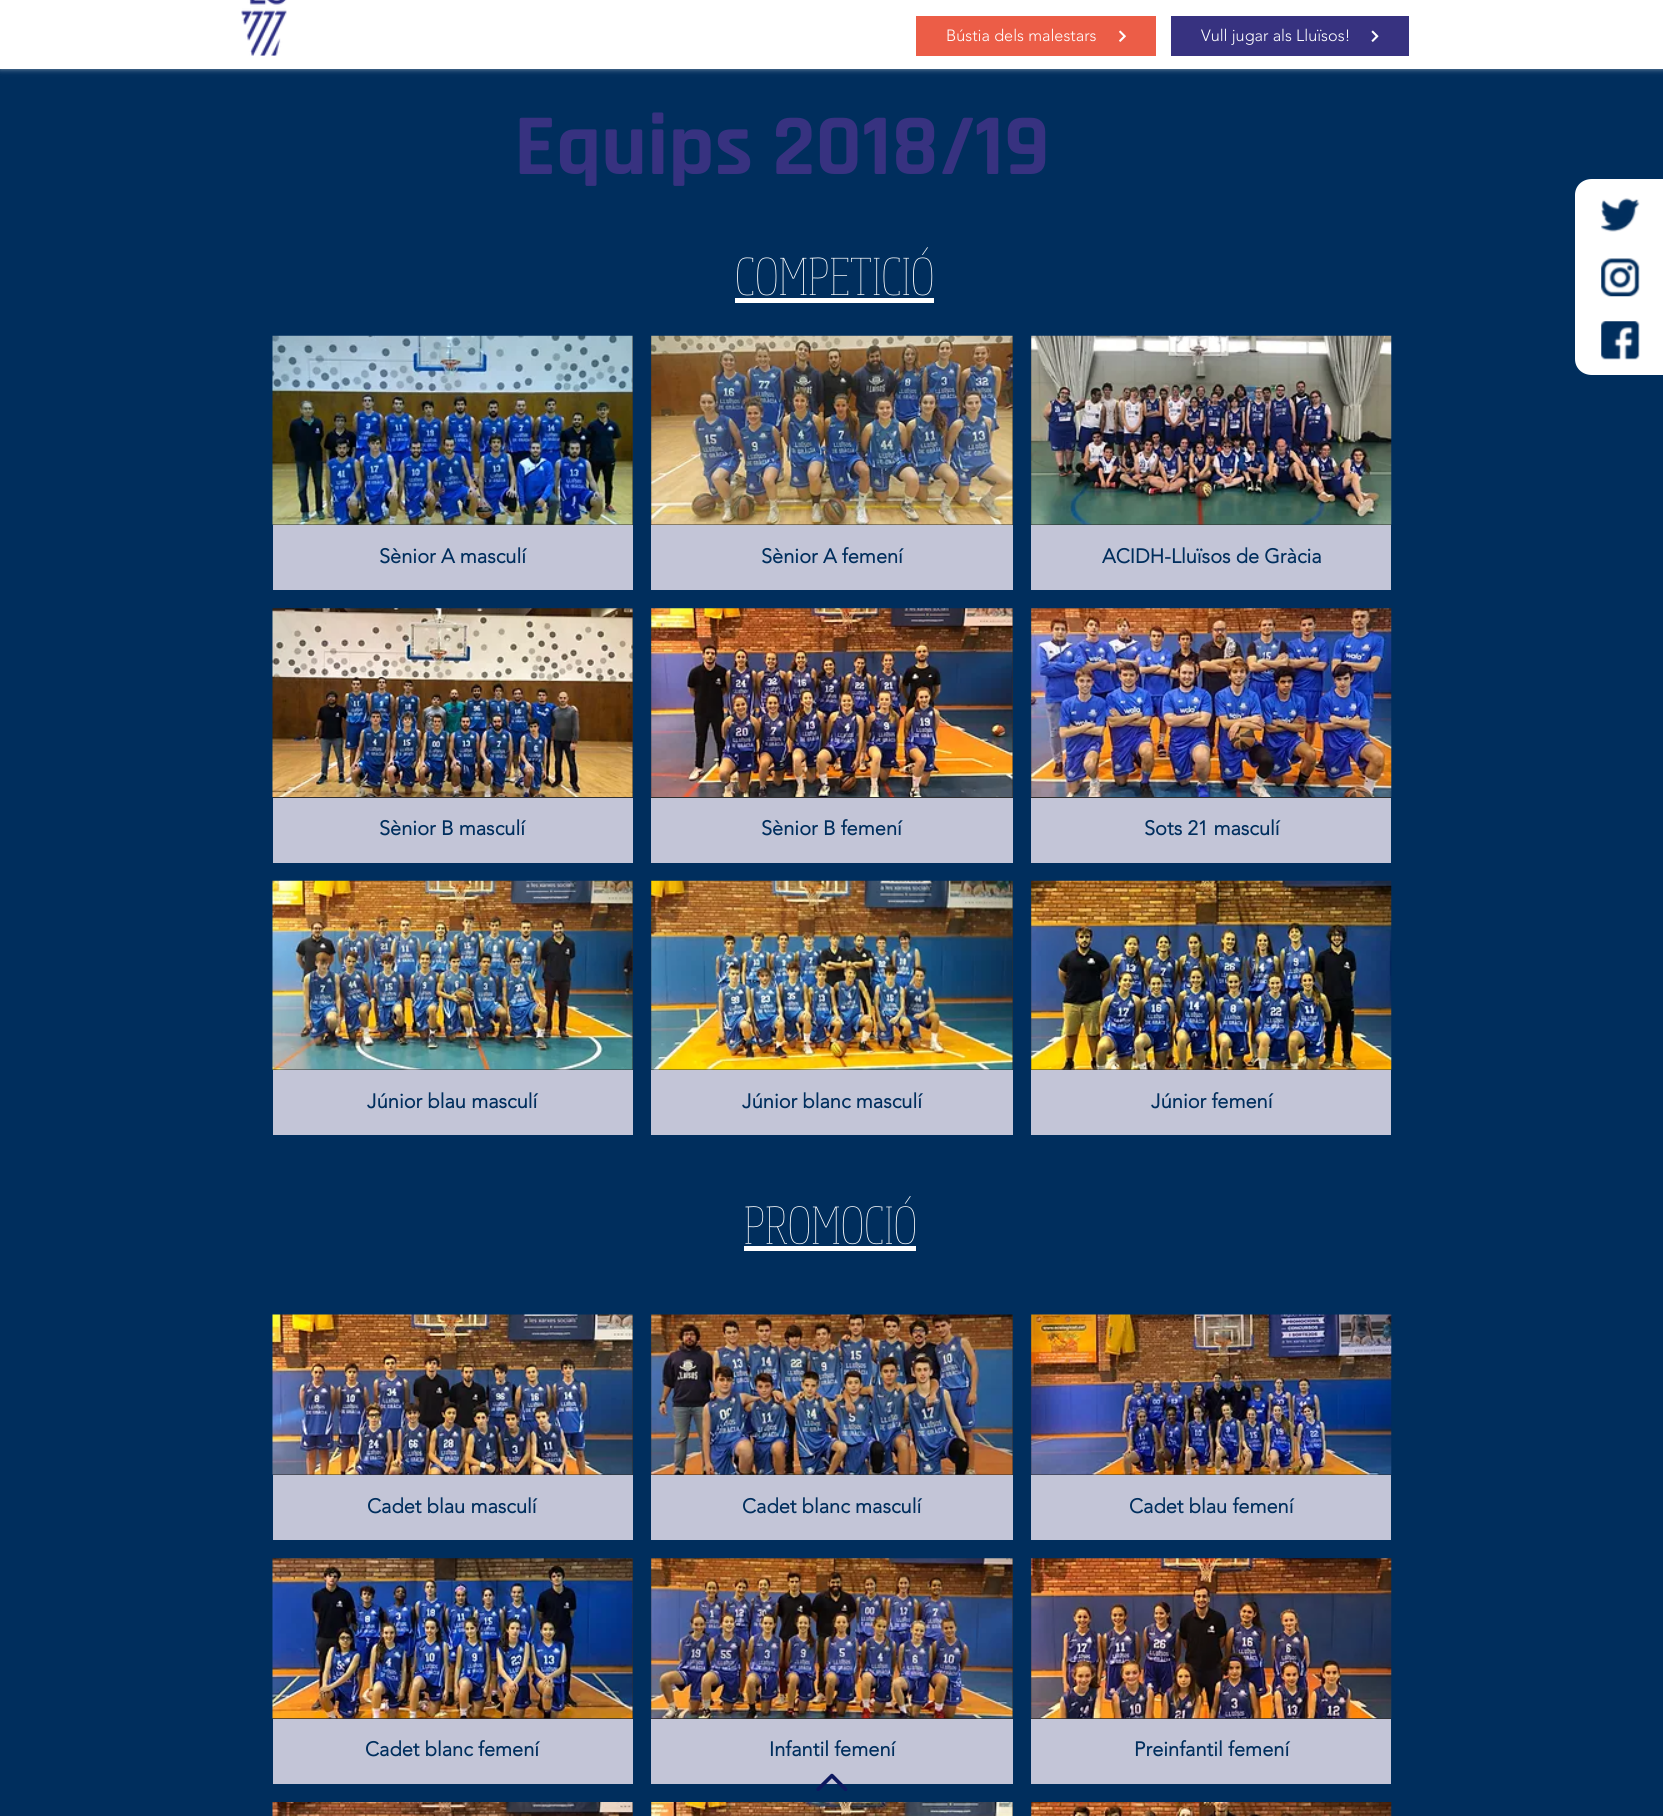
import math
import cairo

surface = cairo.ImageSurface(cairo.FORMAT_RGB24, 1663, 1816)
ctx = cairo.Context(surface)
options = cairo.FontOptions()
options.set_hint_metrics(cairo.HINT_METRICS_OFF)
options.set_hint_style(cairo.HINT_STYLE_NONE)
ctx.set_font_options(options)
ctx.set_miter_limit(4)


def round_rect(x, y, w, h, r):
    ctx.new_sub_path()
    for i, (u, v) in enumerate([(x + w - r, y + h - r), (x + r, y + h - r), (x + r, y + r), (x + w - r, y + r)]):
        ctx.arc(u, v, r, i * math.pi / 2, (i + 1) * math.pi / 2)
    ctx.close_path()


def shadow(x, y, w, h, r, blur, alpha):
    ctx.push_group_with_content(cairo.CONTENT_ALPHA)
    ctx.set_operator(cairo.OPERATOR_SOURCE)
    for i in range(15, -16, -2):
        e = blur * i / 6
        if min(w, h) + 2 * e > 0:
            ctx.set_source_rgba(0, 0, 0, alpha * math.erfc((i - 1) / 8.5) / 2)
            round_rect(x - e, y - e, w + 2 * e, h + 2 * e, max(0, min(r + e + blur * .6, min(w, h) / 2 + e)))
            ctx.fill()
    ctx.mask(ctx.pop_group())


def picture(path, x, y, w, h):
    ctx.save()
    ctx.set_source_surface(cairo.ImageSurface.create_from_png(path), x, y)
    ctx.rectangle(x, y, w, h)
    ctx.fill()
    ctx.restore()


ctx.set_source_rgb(0, 0.18, 0.365)
ctx.paint()
ctx.set_source_rgb(1, 1, 1)
shadow(0, -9, 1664, 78, 0, 3, 0.5)
ctx.set_source_rgb(1, 1, 1)
ctx.rectangle(0, 0, 1663, 69)
ctx.fill()
picture("img1.png", 241, 0, 46, 56)
ctx.set_source_rgb(0.922, 0.365, 0.278)
ctx.rectangle(916, 16, 240, 40)
ctx.fill()
ctx.select_font_face("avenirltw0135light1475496 Light")
ctx.set_font_size(16.25)
ctx.set_source_rgb(1, 1, 1)
ctx.move_to(946, 41)
ctx.show_text("Bústia dels malestars")
picture("img2.png", 1119, 30, 7, 12)
ctx.set_source_rgb(0.216, 0.196, 0.502)
ctx.rectangle(1171, 16, 238, 40)
ctx.fill()
ctx.set_source_rgb(1, 1, 1)
ctx.move_to(1201, 41)
ctx.show_text("Vull jugar als Lluïsos!")
picture("img3.png", 1371, 30, 8, 12)
ctx.select_font_face("Rajdhani", cairo.FONT_SLANT_NORMAL, cairo.FONT_WEIGHT_BOLD)
ctx.set_font_size(87.5)
ctx.set_source_rgb(0.216, 0.196, 0.502)
ctx.move_to(514, 174)
ctx.show_text("Equips 2018/19")
picture("img4.png", 737, 247, 196, 49)
ctx.set_source_rgb(1, 1, 1)
ctx.rectangle(735, 298, 199, 5)
ctx.fill()
ctx.set_source_rgb(0.184, 0.18, 0.18)
ctx.rectangle(273, 336, 360, 189)
ctx.fill()
picture("img5.png", 272, 335, 361, 190)
ctx.set_source_rgb(0.765, 0.773, 0.843)
ctx.rectangle(273, 525, 360, 65)
ctx.fill()
ctx.select_font_face("avenirltw0135light1475496", cairo.FONT_SLANT_NORMAL, cairo.FONT_WEIGHT_BOLD)
ctx.set_font_size(20)
ctx.set_source_rgb(0, 0.18, 0.365)
ctx.move_to(379, 563)
ctx.show_text("Sènior A masculí")
ctx.set_source_rgb(0.184, 0.18, 0.18)
ctx.rectangle(651, 336, 362, 189)
ctx.fill()
picture("img6.png", 651, 335, 362, 190)
ctx.set_source_rgb(0.765, 0.773, 0.843)
ctx.rectangle(651, 525, 362, 65)
ctx.fill()
ctx.set_source_rgb(0, 0.18, 0.365)
ctx.move_to(761, 563)
ctx.show_text("Sènior A femení")
ctx.set_source_rgb(0.184, 0.18, 0.18)
ctx.rectangle(1031, 336, 360, 189)
ctx.fill()
picture("img7.png", 1031, 335, 361, 190)
ctx.set_source_rgb(0.765, 0.773, 0.843)
ctx.rectangle(1031, 525, 360, 65)
ctx.fill()
ctx.set_source_rgb(0, 0.18, 0.365)
ctx.move_to(1102, 563)
ctx.show_text("ACIDH-Lluïsos de Gràcia")
ctx.set_source_rgb(0.184, 0.18, 0.18)
ctx.rectangle(273, 609, 360, 189)
ctx.fill()
picture("img8.png", 272, 608, 361, 189)
ctx.set_source_rgb(0.765, 0.773, 0.843)
ctx.rectangle(273, 798, 360, 65)
ctx.fill()
ctx.set_source_rgb(0, 0.18, 0.365)
ctx.move_to(379, 835)
ctx.show_text("Sènior B masculí")
ctx.set_source_rgb(0.184, 0.18, 0.18)
ctx.rectangle(651, 609, 362, 189)
ctx.fill()
picture("img9.png", 651, 608, 362, 189)
ctx.set_source_rgb(0.765, 0.773, 0.843)
ctx.rectangle(651, 798, 362, 65)
ctx.fill()
ctx.set_source_rgb(0, 0.18, 0.365)
ctx.move_to(761, 835)
ctx.show_text("Sènior B femení")
ctx.set_source_rgb(0.184, 0.18, 0.18)
ctx.rectangle(1031, 609, 360, 189)
ctx.fill()
picture("img10.png", 1031, 608, 361, 189)
ctx.set_source_rgb(0.765, 0.773, 0.843)
ctx.rectangle(1031, 798, 360, 65)
ctx.fill()
ctx.set_source_rgb(0, 0.18, 0.365)
ctx.move_to(1144, 835)
ctx.show_text("Sots 21 masculí")
ctx.set_source_rgb(0.184, 0.18, 0.18)
ctx.rectangle(273, 881, 360, 189)
ctx.fill()
picture("img11.png", 272, 880, 361, 190)
ctx.set_source_rgb(0.765, 0.773, 0.843)
ctx.rectangle(273, 1070, 360, 65)
ctx.fill()
ctx.set_source_rgb(0, 0.18, 0.365)
ctx.move_to(367, 1108)
ctx.show_text("Júnior blau masculí")
ctx.set_source_rgb(0.184, 0.18, 0.18)
ctx.rectangle(651, 881, 362, 189)
ctx.fill()
picture("img12.png", 651, 880, 362, 190)
ctx.set_source_rgb(0.765, 0.773, 0.843)
ctx.rectangle(651, 1070, 362, 65)
ctx.fill()
ctx.set_source_rgb(0, 0.18, 0.365)
ctx.move_to(742, 1108)
ctx.show_text("Júnior blanc masculí")
ctx.set_source_rgb(0.184, 0.18, 0.18)
ctx.rectangle(1031, 881, 360, 189)
ctx.fill()
picture("img13.png", 1031, 880, 361, 190)
ctx.set_source_rgb(0.765, 0.773, 0.843)
ctx.rectangle(1031, 1070, 360, 65)
ctx.fill()
ctx.set_source_rgb(0, 0.18, 0.365)
ctx.move_to(1151, 1108)
ctx.show_text("Júnior femení")
picture("img14.png", 745, 1196, 170, 49)
ctx.set_source_rgb(1, 1, 1)
ctx.rectangle(744, 1246, 172, 5)
ctx.fill()
ctx.set_source_rgb(0.184, 0.18, 0.18)
ctx.rectangle(273, 1315, 360, 160)
ctx.fill()
picture("img15.png", 272, 1314, 361, 161)
ctx.set_source_rgb(0.765, 0.773, 0.843)
ctx.rectangle(273, 1475, 360, 65)
ctx.fill()
ctx.set_source_rgb(0, 0.18, 0.365)
ctx.move_to(367, 1513)
ctx.show_text("Cadet blau masculí")
ctx.set_source_rgb(0.184, 0.18, 0.18)
ctx.rectangle(651, 1315, 362, 160)
ctx.fill()
picture("img16.png", 651, 1314, 362, 161)
ctx.set_source_rgb(0.765, 0.773, 0.843)
ctx.rectangle(651, 1475, 362, 65)
ctx.fill()
ctx.set_source_rgb(0, 0.18, 0.365)
ctx.move_to(742, 1513)
ctx.show_text("Cadet blanc masculí")
ctx.set_source_rgb(0.184, 0.18, 0.18)
ctx.rectangle(1031, 1315, 360, 160)
ctx.fill()
picture("img17.png", 1031, 1314, 361, 161)
ctx.set_source_rgb(0.765, 0.773, 0.843)
ctx.rectangle(1031, 1475, 360, 65)
ctx.fill()
ctx.set_source_rgb(0, 0.18, 0.365)
ctx.move_to(1129, 1513)
ctx.show_text("Cadet blau femení")
ctx.set_source_rgb(0.184, 0.18, 0.18)
ctx.rectangle(273, 1559, 360, 160)
ctx.fill()
picture("img18.png", 272, 1558, 361, 161)
ctx.set_source_rgb(0.765, 0.773, 0.843)
ctx.rectangle(273, 1719, 360, 65)
ctx.fill()
ctx.set_source_rgb(0, 0.18, 0.365)
ctx.move_to(365, 1756)
ctx.show_text("Cadet blanc femení")
ctx.set_source_rgb(0.184, 0.18, 0.18)
ctx.rectangle(651, 1559, 362, 160)
ctx.fill()
picture("img19.png", 651, 1558, 362, 161)
ctx.set_source_rgb(0.765, 0.773, 0.843)
ctx.rectangle(651, 1719, 362, 65)
ctx.fill()
ctx.set_source_rgb(0, 0.18, 0.365)
ctx.move_to(769, 1756)
ctx.show_text("Infantil femení")
ctx.set_source_rgb(0.184, 0.18, 0.18)
ctx.rectangle(1031, 1559, 360, 160)
ctx.fill()
picture("img20.png", 1031, 1558, 361, 161)
ctx.set_source_rgb(0.765, 0.773, 0.843)
ctx.rectangle(1031, 1719, 360, 65)
ctx.fill()
ctx.set_source_rgb(0, 0.18, 0.365)
ctx.move_to(1134, 1756)
ctx.show_text("Preinfantil femení")
ctx.set_source_rgb(0.184, 0.18, 0.18)
ctx.rectangle(632, 1803, 1, 13)
ctx.fill()
picture("img21.png", 272, 1802, 361, 14)
ctx.rectangle(651, 1803, 362, 13)
ctx.fill()
picture("img22.png", 651, 1802, 362, 14)
picture("img23.png", 1031, 1802, 361, 14)
ctx.set_source_rgb(1, 1, 1)
ctx.new_path()
ctx.move_to(1575, 359)
ctx.line_to(1575, 195)
ctx.curve_to(1575, 186, 1582, 179, 1592, 179)
ctx.line_to(1635, 179)
ctx.curve_to(1644, 179, 1651, 186, 1651, 195)
ctx.line_to(1651, 359)
ctx.curve_to(1651, 368, 1644, 375, 1635, 375)
ctx.line_to(1592, 375)
ctx.curve_to(1582, 375, 1575, 368, 1575, 359)
ctx.close_path()
ctx.fill()
ctx.rectangle(1635, 179, 28, 196)
ctx.fill()
picture("img24.png", 1601, 198, 39, 34)
picture("img25.png", 1601, 258, 39, 39)
picture("img26.png", 1601, 321, 39, 39)
picture("img27.png", 816, 1773, 32, 19)
surface.write_to_png("page.png")
